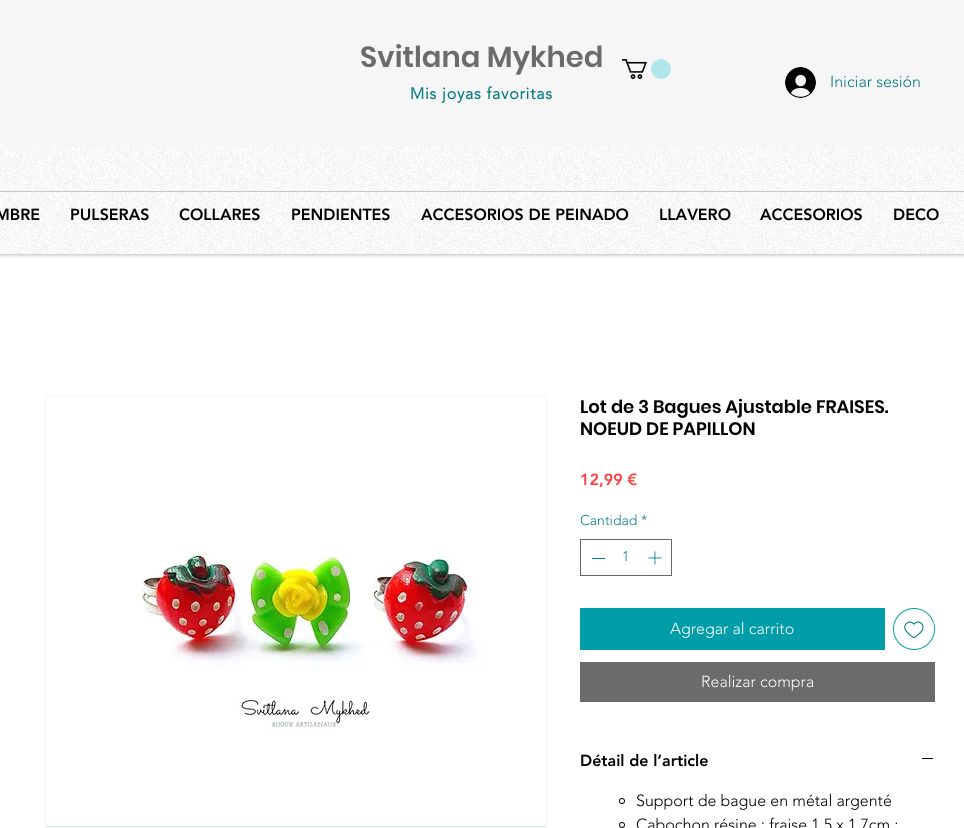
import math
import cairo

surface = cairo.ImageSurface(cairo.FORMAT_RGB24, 964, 828)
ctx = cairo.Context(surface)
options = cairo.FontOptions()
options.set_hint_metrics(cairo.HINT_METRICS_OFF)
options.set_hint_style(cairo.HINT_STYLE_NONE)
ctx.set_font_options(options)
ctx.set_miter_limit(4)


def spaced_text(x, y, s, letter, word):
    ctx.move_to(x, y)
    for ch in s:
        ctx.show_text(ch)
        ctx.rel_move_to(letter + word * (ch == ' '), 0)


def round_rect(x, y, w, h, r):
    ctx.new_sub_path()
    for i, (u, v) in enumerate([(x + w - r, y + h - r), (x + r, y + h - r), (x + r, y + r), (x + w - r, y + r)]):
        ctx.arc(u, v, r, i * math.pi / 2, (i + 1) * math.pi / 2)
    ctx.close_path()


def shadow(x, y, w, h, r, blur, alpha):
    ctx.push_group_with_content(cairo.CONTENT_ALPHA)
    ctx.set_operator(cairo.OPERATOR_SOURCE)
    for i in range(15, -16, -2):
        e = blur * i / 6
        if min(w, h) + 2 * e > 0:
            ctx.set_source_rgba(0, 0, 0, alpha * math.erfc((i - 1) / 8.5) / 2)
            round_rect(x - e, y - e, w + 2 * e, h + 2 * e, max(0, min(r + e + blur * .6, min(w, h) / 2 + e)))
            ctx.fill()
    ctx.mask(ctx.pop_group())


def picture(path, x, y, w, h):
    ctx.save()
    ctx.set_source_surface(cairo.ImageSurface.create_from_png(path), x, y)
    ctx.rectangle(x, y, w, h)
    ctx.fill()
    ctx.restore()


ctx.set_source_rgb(1, 1, 1)
ctx.paint()
ctx.save()
ctx.rectangle(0, 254, 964, 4)
ctx.clip()
ctx.set_source_rgb(0, 0, 0)
shadow(0, 0, 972, 254, 0, 2.5, 0.4)
ctx.restore()
picture("img1.png", 0, 146, 964, 108)
ctx.set_source_rgb(0.961, 0.961, 0.961)
ctx.rectangle(0, 0, 964, 146)
ctx.fill()
ctx.set_source_rgb(0.78, 0.78, 0.78)
ctx.rectangle(0, 191, 964, 1)
ctx.fill()
ctx.select_font_face("Poppins SemiBold")
ctx.set_font_size(29)
ctx.set_source_rgb(0.42, 0.42, 0.416)
ctx.move_to(360, 67)
ctx.show_text("Svitlana Mykhed")
ctx.select_font_face("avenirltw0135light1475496", cairo.FONT_SLANT_NORMAL, cairo.FONT_WEIGHT_BOLD)
ctx.set_font_size(16)
ctx.set_source_rgb(0.016, 0.482, 0.522)
spaced_text(410, 99, "Mis joyas favoritas", 0.75, 0)
ctx.select_font_face("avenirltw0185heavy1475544 Black")
ctx.set_source_rgb(0, 0, 0)
ctx.move_to(-5, 220)
ctx.show_text("MBRE")
ctx.move_to(70, 220)
ctx.show_text("PULSERAS")
ctx.move_to(179, 220)
ctx.show_text("COLLARES")
ctx.move_to(291, 220)
ctx.show_text("PENDIENTES")
ctx.move_to(421, 220)
ctx.show_text("ACCESORIOS DE PEINADO")
ctx.move_to(659, 220)
ctx.show_text("LLAVERO")
ctx.move_to(760, 220)
ctx.show_text("ACCESORIOS")
ctx.move_to(893, 220)
ctx.show_text("DECO")
picture("img2.png", 622, 59, 49, 20)
picture("img3.png", 785, 67, 31, 31)
ctx.select_font_face("avenirltw0135light1475496 Light")
ctx.set_source_rgb(0.016, 0.482, 0.522)
ctx.move_to(830, 87)
ctx.show_text("Iniciar sesión")
ctx.rectangle(45.5, 396.5, 501, 431)
ctx.set_source_rgb(0.961, 0.961, 0.961)
ctx.set_line_width(1)
ctx.stroke()
picture("img4.png", 46, 553, 500, 274)
ctx.select_font_face("Poppins SemiBold")
ctx.set_font_size(18)
ctx.set_source_rgb(0, 0, 0)
ctx.move_to(580, 413)
ctx.show_text("Lot de 3 Bagues Ajustable FRAISES.")
ctx.move_to(580, 435)
ctx.show_text("NOEUD DE PAPILLON")
ctx.select_font_face("avenirltw0185heavy1475544 Black")
ctx.set_font_size(16)
ctx.set_source_rgb(1, 0.251, 0.251)
ctx.move_to(580, 485)
ctx.show_text("12,99 €")
ctx.select_font_face("avenirltw0135light1475496 Light")
ctx.set_font_size(14)
ctx.set_source_rgb(0.016, 0.482, 0.522)
ctx.move_to(580, 525)
ctx.show_text("Cantidad")
ctx.move_to(641, 525)
ctx.show_text("*")
ctx.rectangle(580.5, 539.5, 91, 36)
ctx.set_source_rgb(0.4, 0.4, 0.4)
ctx.stroke()
ctx.set_source_rgb(0.016, 0.482, 0.522)
ctx.rectangle(592, 558, 13, 1)
ctx.fill()
ctx.move_to(622, 561)
ctx.show_text("1")
picture("img5.png", 648, 551, 14, 14)
ctx.set_source_rgb(0.004, 0.62, 0.667)
ctx.rectangle(580, 608, 305, 42)
ctx.fill()
ctx.set_font_size(16)
ctx.set_source_rgb(1, 1, 1)
ctx.move_to(670, 634)
ctx.show_text("Agregar al carrito")
ctx.new_path()
ctx.arc(914, 629, 20.5, 0, 2 * math.pi)
ctx.set_source_rgb(0.004, 0.62, 0.667)
ctx.stroke()
picture("img6.png", 904, 621, 20, 18)
ctx.save()
ctx.rectangle(894, 613, 40, 32)
ctx.clip()
ctx.select_font_face("avenirltw0135light1475496 Light", cairo.FONT_SLANT_ITALIC)
ctx.set_source_rgb(0.878, 0.953, 0.957)
ctx.move_to(927, 634)
ctx.show_text("*")
ctx.restore()
ctx.set_source_rgb(0.42, 0.42, 0.416)
ctx.rectangle(580, 662, 355, 40)
ctx.fill()
ctx.set_source_rgb(1, 1, 1)
ctx.move_to(701, 687)
ctx.show_text("Realizar compra")
ctx.select_font_face("avenirltw0185heavy1475544 Black")
ctx.set_source_rgb(0, 0, 0)
ctx.move_to(580, 766)
ctx.show_text("Détail de l’article")
ctx.rectangle(922, 758, 11, 1)
ctx.fill()
ctx.arc(622, 801, 2.5, 0, 2 * math.pi)
ctx.stroke()
ctx.select_font_face("avenirltw0135light1475496 Light")
ctx.move_to(636, 806)
ctx.show_text("Support de bague en métal argenté")
ctx.new_path()
ctx.arc(622, 825, 2.5, 0, 2 * math.pi)
ctx.stroke()
ctx.move_to(636, 830)
ctx.show_text("Cabochon résine : fraise 1,5 x 1,7cm.;")
surface.write_to_png("page.png")
